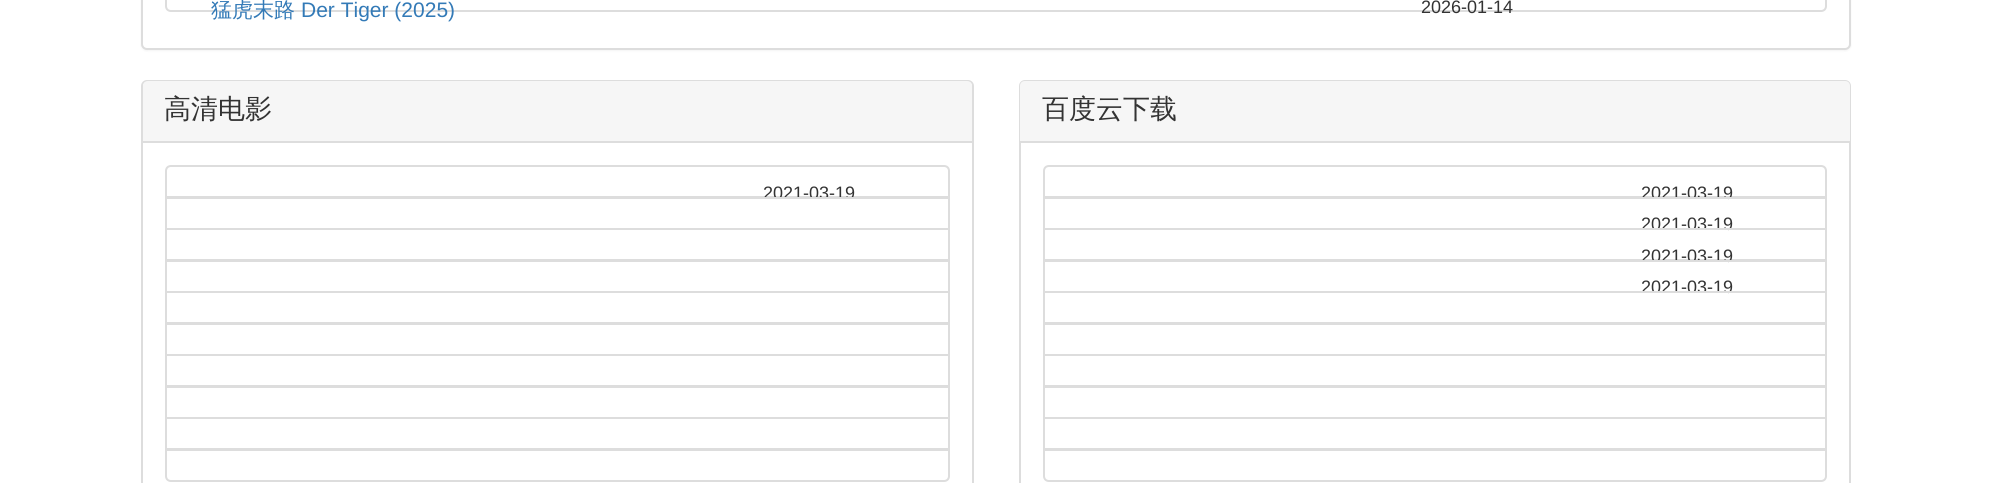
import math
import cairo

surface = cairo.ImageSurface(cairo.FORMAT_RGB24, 1990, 483)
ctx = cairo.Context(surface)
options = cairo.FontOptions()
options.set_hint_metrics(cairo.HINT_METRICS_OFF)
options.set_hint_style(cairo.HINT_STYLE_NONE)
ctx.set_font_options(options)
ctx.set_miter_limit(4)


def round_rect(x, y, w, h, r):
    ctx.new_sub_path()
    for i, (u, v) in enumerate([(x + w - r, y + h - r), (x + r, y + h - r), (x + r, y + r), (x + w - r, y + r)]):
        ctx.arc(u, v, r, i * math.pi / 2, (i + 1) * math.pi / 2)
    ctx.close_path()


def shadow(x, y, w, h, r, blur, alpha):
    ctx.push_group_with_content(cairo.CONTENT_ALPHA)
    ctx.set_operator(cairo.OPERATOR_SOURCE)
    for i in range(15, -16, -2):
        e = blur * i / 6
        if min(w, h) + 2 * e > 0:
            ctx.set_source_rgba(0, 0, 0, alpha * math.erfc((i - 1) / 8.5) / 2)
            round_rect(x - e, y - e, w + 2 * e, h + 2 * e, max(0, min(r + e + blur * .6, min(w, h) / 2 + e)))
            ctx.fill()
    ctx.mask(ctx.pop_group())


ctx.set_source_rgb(1, 1, 1)
ctx.paint()
ctx.set_source_rgb(0, 0, 0)
shadow(141, -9, 1710, 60, 6, 1, 0.05)
ctx.set_source_rgb(1, 1, 1)
round_rect(142, -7, 1708, 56, 5)
ctx.fill_preserve()
ctx.set_source_rgb(0.867, 0.867, 0.867)
ctx.stroke()
ctx.new_path()
ctx.move_to(166, -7)
ctx.line_to(1826, -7)
ctx.line_to(1826, 6)
ctx.curve_to(1826, 9, 1824, 11, 1821, 11)
ctx.line_to(171, 11)
ctx.curve_to(168, 11, 166, 9, 166, 6)
ctx.close_path()
ctx.stroke()
ctx.select_font_face("WenQuanYi Zen Hei Medium")
ctx.set_font_size(21)
ctx.set_source_rgb(0.2, 0.478, 0.718)
ctx.move_to(211, 17)
ctx.show_text("猛虎末路")
ctx.select_font_face("Liberation Sans")
ctx.move_to(301, 17)
ctx.show_text("Der Tiger (2025)")
ctx.set_font_size(18)
ctx.set_source_rgb(0.2, 0.2, 0.2)
ctx.move_to(1421, 13)
ctx.show_text("2026-01-14")
round_rect(142, 81, 831, 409, 5)
ctx.set_source_rgb(0.867, 0.867, 0.867)
ctx.stroke()
ctx.set_source_rgb(0.961, 0.961, 0.961)
ctx.new_path()
ctx.move_to(148, 81)
ctx.line_to(967, 81)
ctx.curve_to(970, 81, 972, 83, 972, 86)
ctx.line_to(972, 143)
ctx.line_to(143, 143)
ctx.line_to(143, 86)
ctx.curve_to(143, 83, 145, 81, 148, 81)
ctx.close_path()
ctx.fill()
ctx.set_source_rgb(0.867, 0.867, 0.867)
ctx.rectangle(143, 141, 829, 2)
ctx.fill()
ctx.select_font_face("WenQuanYi Zen Hei Medium")
ctx.set_font_size(27)
ctx.set_source_rgb(0.2, 0.2, 0.2)
ctx.move_to(164, 118)
ctx.show_text("高清电影")
ctx.new_path()
ctx.move_to(171, 166)
ctx.line_to(944, 166)
ctx.curve_to(947, 166, 949, 168, 949, 171)
ctx.line_to(949, 197)
ctx.line_to(166, 197)
ctx.line_to(166, 171)
ctx.curve_to(166, 168, 168, 166, 171, 166)
ctx.close_path()
ctx.set_source_rgb(0.867, 0.867, 0.867)
ctx.stroke()
ctx.select_font_face("Liberation Sans")
ctx.set_font_size(18)
ctx.set_source_rgb(0.2, 0.2, 0.2)
ctx.move_to(763, 199)
ctx.show_text("2021-03-19")
ctx.set_source_rgb(1, 1, 1)
ctx.rectangle(777, 199, 74, 1)
ctx.fill()
ctx.rectangle(166, 198, 783, 31)
ctx.set_source_rgb(0.867, 0.867, 0.867)
ctx.stroke()
ctx.rectangle(166, 229, 783, 31)
ctx.stroke()
ctx.rectangle(166, 261, 783, 31)
ctx.stroke()
ctx.rectangle(166, 292, 783, 31)
ctx.stroke()
ctx.rectangle(166, 324, 783, 31)
ctx.stroke()
ctx.rectangle(166, 355, 783, 31)
ctx.stroke()
ctx.rectangle(166, 387, 783, 31)
ctx.stroke()
ctx.rectangle(166, 418, 783, 31)
ctx.stroke()
ctx.set_source_rgb(1, 1, 1)
ctx.new_path()
ctx.move_to(166, 450)
ctx.line_to(949, 450)
ctx.line_to(949, 476)
ctx.curve_to(949, 479, 947, 481, 944, 481)
ctx.line_to(171, 481)
ctx.curve_to(168, 481, 166, 479, 166, 476)
ctx.close_path()
ctx.fill_preserve()
ctx.set_source_rgb(0.867, 0.867, 0.867)
ctx.stroke()
round_rect(1020, 81, 830, 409, 5)
ctx.stroke()
ctx.set_source_rgb(0.961, 0.961, 0.961)
ctx.new_path()
ctx.move_to(1025, 81)
ctx.line_to(1845, 81)
ctx.curve_to(1848, 81, 1850, 83, 1850, 86)
ctx.line_to(1850, 143)
ctx.line_to(1020, 143)
ctx.line_to(1020, 86)
ctx.curve_to(1020, 83, 1022, 81, 1025, 81)
ctx.close_path()
ctx.fill()
ctx.set_source_rgb(0.867, 0.867, 0.867)
ctx.rectangle(1020, 141, 830, 2)
ctx.fill()
ctx.select_font_face("WenQuanYi Zen Hei Medium")
ctx.set_font_size(27)
ctx.set_source_rgb(0.2, 0.2, 0.2)
ctx.move_to(1042, 118)
ctx.show_text("百度云下载")
ctx.new_path()
ctx.move_to(1049, 166)
ctx.line_to(1821, 166)
ctx.curve_to(1824, 166, 1826, 168, 1826, 171)
ctx.line_to(1826, 197)
ctx.line_to(1044, 197)
ctx.line_to(1044, 171)
ctx.curve_to(1044, 168, 1046, 166, 1049, 166)
ctx.close_path()
ctx.set_source_rgb(0.867, 0.867, 0.867)
ctx.stroke()
ctx.select_font_face("Liberation Sans")
ctx.set_font_size(18)
ctx.set_source_rgb(0.2, 0.2, 0.2)
ctx.move_to(1641, 199)
ctx.show_text("2021-03-19")
ctx.set_source_rgb(1, 1, 1)
ctx.rectangle(1654, 199, 74, 1)
ctx.fill()
ctx.rectangle(1044, 198, 782, 31)
ctx.set_source_rgb(0.867, 0.867, 0.867)
ctx.stroke()
ctx.set_source_rgb(0.2, 0.2, 0.2)
ctx.move_to(1641, 230)
ctx.show_text("2021-03-19")
ctx.set_source_rgb(1, 1, 1)
ctx.rectangle(1654, 230, 74, 1)
ctx.fill()
ctx.rectangle(1044, 229, 782, 31)
ctx.set_source_rgb(0.867, 0.867, 0.867)
ctx.stroke()
ctx.set_source_rgb(0.2, 0.2, 0.2)
ctx.move_to(1641, 262)
ctx.show_text("2021-03-19")
ctx.set_source_rgb(1, 1, 1)
ctx.rectangle(1654, 262, 74, 1)
ctx.fill()
ctx.rectangle(1044, 261, 782, 31)
ctx.set_source_rgb(0.867, 0.867, 0.867)
ctx.stroke()
ctx.set_source_rgb(0.2, 0.2, 0.2)
ctx.move_to(1641, 293)
ctx.show_text("2021-03-19")
ctx.set_source_rgb(1, 1, 1)
ctx.rectangle(1654, 293, 74, 1)
ctx.fill()
ctx.rectangle(1044, 292, 782, 31)
ctx.set_source_rgb(0.867, 0.867, 0.867)
ctx.stroke()
ctx.rectangle(1044, 324, 782, 31)
ctx.stroke()
ctx.rectangle(1044, 355, 782, 31)
ctx.stroke()
ctx.rectangle(1044, 387, 782, 31)
ctx.stroke()
ctx.rectangle(1044, 418, 782, 31)
ctx.stroke()
ctx.set_source_rgb(1, 1, 1)
ctx.new_path()
ctx.move_to(1044, 450)
ctx.line_to(1826, 450)
ctx.line_to(1826, 476)
ctx.curve_to(1826, 479, 1824, 481, 1821, 481)
ctx.line_to(1049, 481)
ctx.curve_to(1046, 481, 1044, 479, 1044, 476)
ctx.close_path()
ctx.fill_preserve()
ctx.set_source_rgb(0.867, 0.867, 0.867)
ctx.stroke()
surface.write_to_png("page.png")
